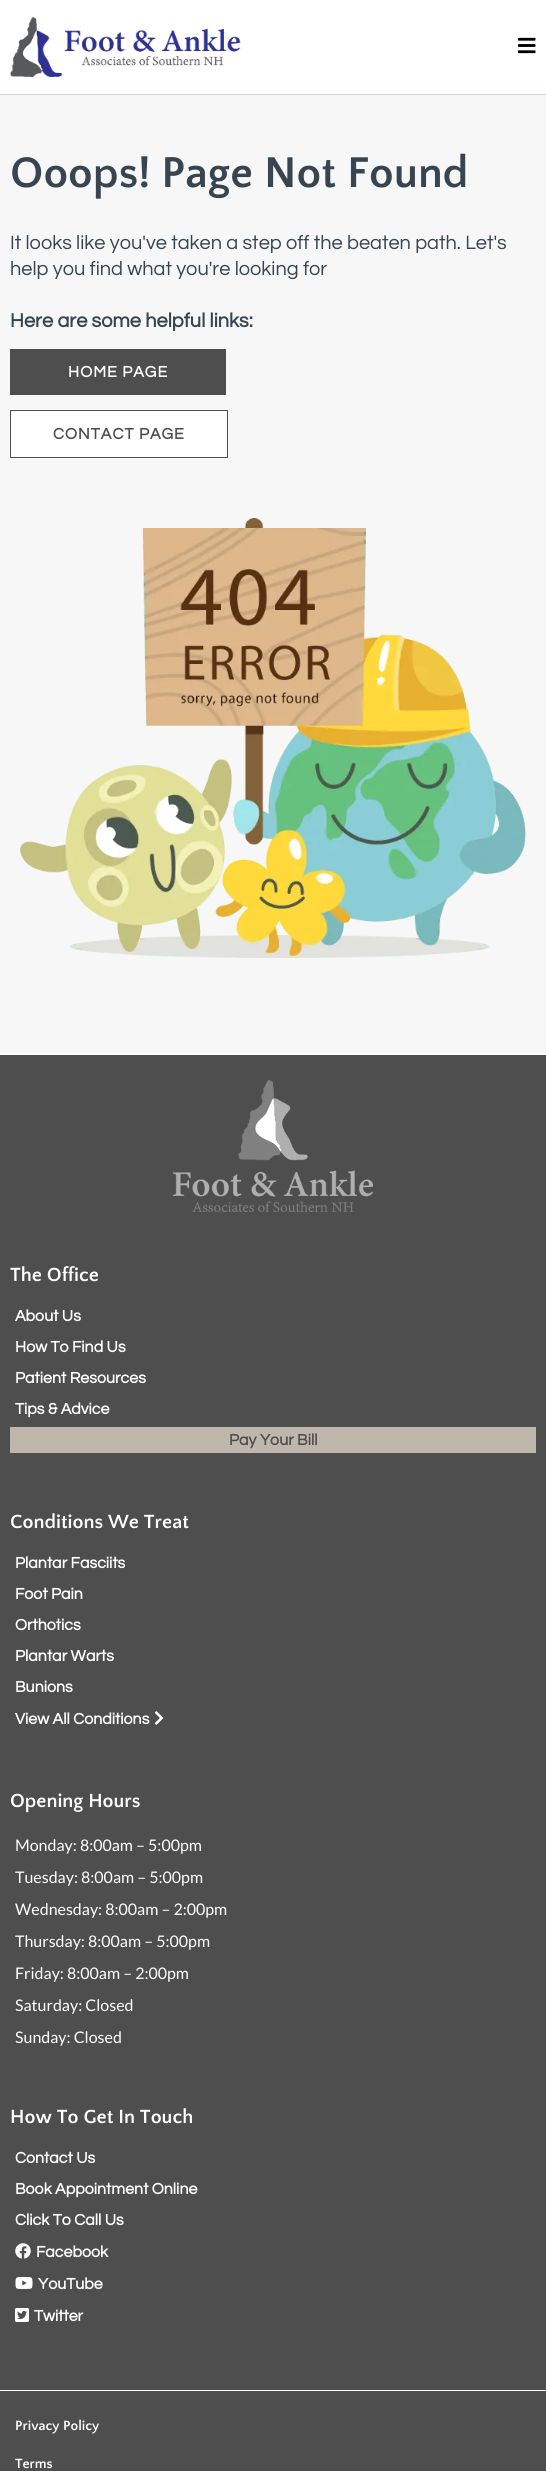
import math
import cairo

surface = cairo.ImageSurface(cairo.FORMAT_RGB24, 546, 2471)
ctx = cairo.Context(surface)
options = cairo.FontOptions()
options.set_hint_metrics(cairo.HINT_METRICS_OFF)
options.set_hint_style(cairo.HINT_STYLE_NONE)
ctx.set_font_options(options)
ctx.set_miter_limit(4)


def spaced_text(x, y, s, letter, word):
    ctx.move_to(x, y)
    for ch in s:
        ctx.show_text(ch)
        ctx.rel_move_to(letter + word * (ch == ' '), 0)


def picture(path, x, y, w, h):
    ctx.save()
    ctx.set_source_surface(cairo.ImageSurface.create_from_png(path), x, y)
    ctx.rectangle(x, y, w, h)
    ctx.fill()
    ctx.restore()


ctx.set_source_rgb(1, 1, 1)
ctx.paint()
ctx.set_source_rgb(0.796, 0.835, 0.878)
ctx.rectangle(0, 94, 546, 1)
ctx.fill()
picture("img1.png", 10, 17, 231, 60)
picture("img2.png", 518, 37, 18, 17)
ctx.set_source_rgb(0.965, 0.965, 0.965)
ctx.rectangle(0, 95, 546, 958)
ctx.fill()
ctx.select_font_face("Quattrocento Sans", cairo.FONT_SLANT_NORMAL, cairo.FONT_WEIGHT_BOLD)
ctx.set_font_size(45)
ctx.set_source_rgb(0.212, 0.271, 0.31)
ctx.move_to(10, 187)
ctx.show_text("Ooops! Page Not Found")
ctx.select_font_face("Questrial")
ctx.set_font_size(20)
ctx.move_to(10, 249)
ctx.show_text("It looks like you've taken a step off the beaten path. Let's")
ctx.move_to(10, 275)
ctx.show_text("help you find what you're looking for")
ctx.select_font_face("Questrial", cairo.FONT_SLANT_NORMAL, cairo.FONT_WEIGHT_BOLD)
ctx.move_to(10, 327)
ctx.show_text("Here are some helpful links:")
ctx.set_source_rgb(0.306, 0.306, 0.306)
ctx.rectangle(10, 349, 216, 46)
ctx.fill()
ctx.set_font_size(16)
ctx.set_source_rgb(1, 1, 1)
spaced_text(68, 377, "HOME PAGE", 1, 0)
ctx.rectangle(10.5, 410.5, 217, 47)
ctx.fill_preserve()
ctx.set_source_rgb(0.306, 0.306, 0.306)
ctx.set_line_width(1)
ctx.stroke()
spaced_text(53, 439, "CONTACT PAGE", 1, 0)
picture("img3.png", 20, 518, 506, 440)
ctx.rectangle(0, 1055, 546, 1416)
ctx.fill()
picture("img4.png", 173, 1080, 200, 132)
ctx.set_source_rgb(1, 1, 1)
ctx.rectangle(0, 2390, 546, 1)
ctx.fill()
ctx.select_font_face("Quattrocento Sans", cairo.FONT_SLANT_NORMAL, cairo.FONT_WEIGHT_BOLD)
ctx.set_font_size(20)
ctx.move_to(10, 1281)
ctx.show_text("The Office")
ctx.select_font_face("Questrial", cairo.FONT_SLANT_NORMAL, cairo.FONT_WEIGHT_BOLD)
ctx.set_font_size(16)
ctx.move_to(15, 1321)
ctx.show_text("About Us")
ctx.move_to(15, 1352)
ctx.show_text("How To Find Us")
ctx.move_to(15, 1383)
ctx.show_text("Patient Resources")
ctx.move_to(15, 1414)
ctx.show_text("Tips & Advice")
ctx.set_source_rgb(0.749, 0.718, 0.675)
ctx.rectangle(10, 1427, 526, 26)
ctx.fill()
ctx.set_source_rgb(0.306, 0.306, 0.306)
ctx.move_to(229, 1445)
ctx.show_text("Pay Your Bill")
ctx.select_font_face("Quattrocento Sans", cairo.FONT_SLANT_NORMAL, cairo.FONT_WEIGHT_BOLD)
ctx.set_font_size(20)
ctx.set_source_rgb(1, 1, 1)
ctx.move_to(10, 1528)
ctx.show_text("Conditions We Treat")
ctx.select_font_face("Questrial", cairo.FONT_SLANT_NORMAL, cairo.FONT_WEIGHT_BOLD)
ctx.set_font_size(16)
ctx.move_to(15, 1568)
ctx.show_text("Plantar Fasciits")
ctx.move_to(15, 1599)
ctx.show_text("Foot Pain")
ctx.move_to(15, 1630)
ctx.show_text("Orthotics")
ctx.move_to(15, 1661)
ctx.show_text("Plantar Warts")
ctx.move_to(15, 1692)
ctx.show_text("Bunions")
ctx.move_to(15, 1724)
ctx.show_text("View All Conditions")
picture("img5.png", 154, 1711, 10, 14)
ctx.select_font_face("Quattrocento Sans", cairo.FONT_SLANT_NORMAL, cairo.FONT_WEIGHT_BOLD)
ctx.set_font_size(20)
ctx.move_to(10, 1807)
ctx.show_text("Opening Hours")
ctx.select_font_face("Lato")
ctx.set_font_size(16)
ctx.move_to(15, 1851)
ctx.show_text("Monday: 8:00am – 5:00pm")
ctx.move_to(15, 1883)
ctx.show_text("Tuesday: 8:00am – 5:00pm")
ctx.move_to(15, 1915)
ctx.show_text("Wednesday: 8:00am – 2:00pm")
ctx.move_to(15, 1947)
ctx.show_text("Thursday: 8:00am – 5:00pm")
ctx.move_to(15, 1979)
ctx.show_text("Friday: 8:00am – 2:00pm")
ctx.move_to(15, 2011)
ctx.show_text("Saturday: Closed")
ctx.move_to(15, 2043)
ctx.show_text("Sunday: Closed")
ctx.select_font_face("Quattrocento Sans", cairo.FONT_SLANT_NORMAL, cairo.FONT_WEIGHT_BOLD)
ctx.set_font_size(20)
ctx.move_to(10, 2123)
ctx.show_text("How To Get In Touch")
ctx.select_font_face("Questrial", cairo.FONT_SLANT_NORMAL, cairo.FONT_WEIGHT_BOLD)
ctx.set_font_size(16)
ctx.move_to(15, 2163)
ctx.show_text("Contact Us")
ctx.move_to(15, 2194)
ctx.show_text("Book Appointment Online")
ctx.move_to(15, 2225)
ctx.show_text("Click To Call Us")
picture("img6.png", 15, 2243, 16, 16)
ctx.move_to(36, 2257)
ctx.show_text("Facebook")
picture("img7.png", 15, 2277, 18, 12)
ctx.move_to(38, 2289)
ctx.show_text("YouTube")
picture("img8.png", 15, 2308, 14, 14)
ctx.move_to(34, 2321)
ctx.show_text("Twitter")
ctx.select_font_face("Quattrocento Sans", cairo.FONT_SLANT_NORMAL, cairo.FONT_WEIGHT_BOLD)
ctx.set_font_size(14)
ctx.move_to(15, 2430)
ctx.show_text("Privacy Policy")
ctx.move_to(15, 2468)
ctx.show_text("Terms")
surface.write_to_png("page.png")
